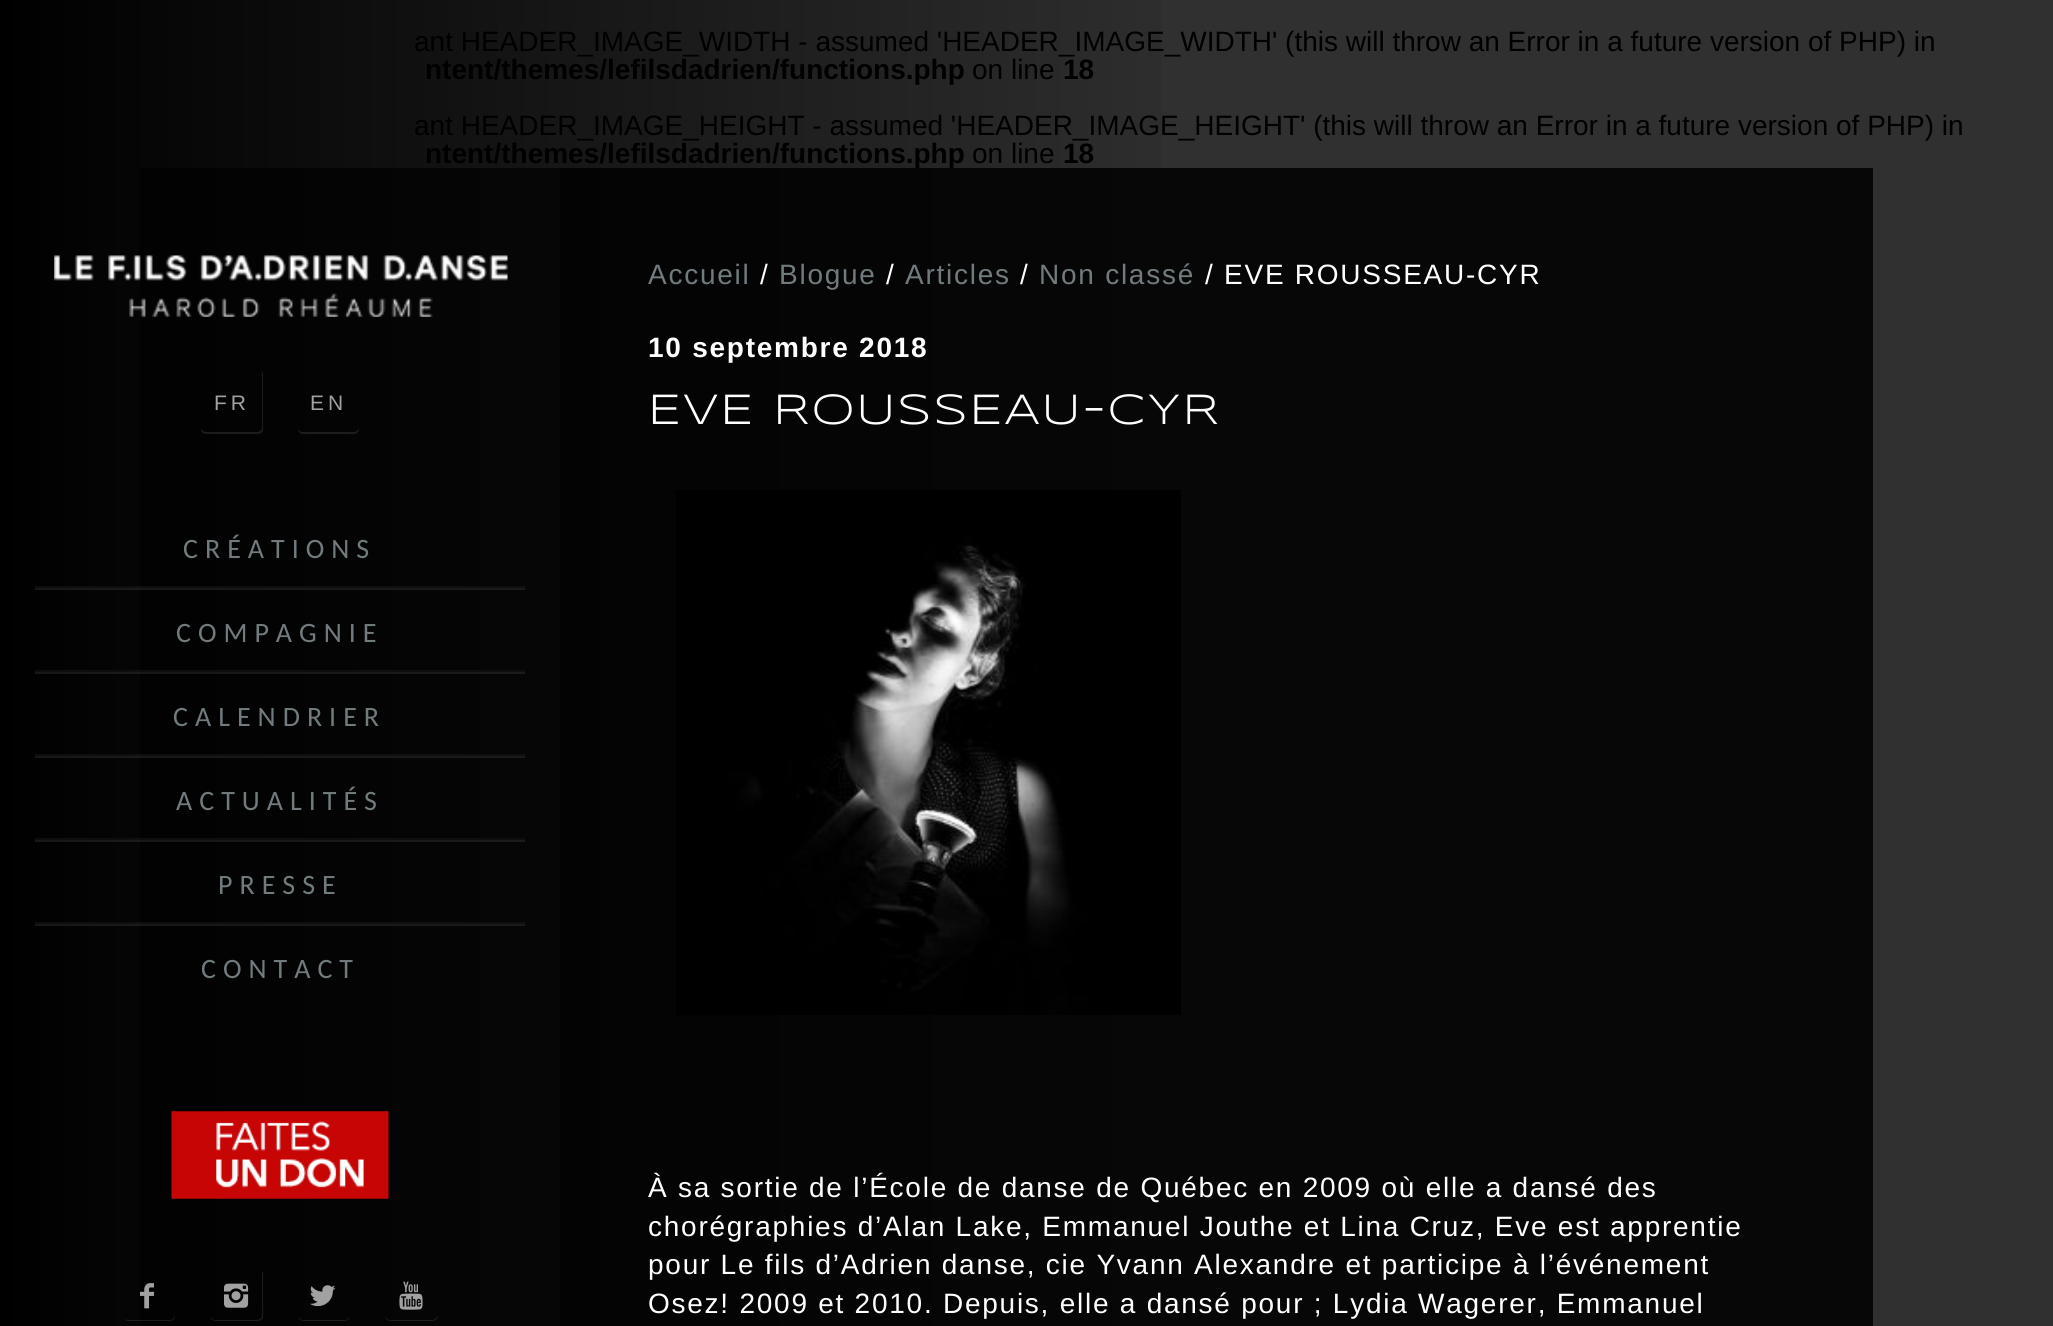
import math
import cairo

surface = cairo.ImageSurface(cairo.FORMAT_RGB24, 2053, 1326)
ctx = cairo.Context(surface)
options = cairo.FontOptions()
options.set_hint_metrics(cairo.HINT_METRICS_OFF)
options.set_hint_style(cairo.HINT_STYLE_NONE)
ctx.set_font_options(options)
ctx.set_miter_limit(4)


def spaced_text(x, y, s, letter, word):
    ctx.move_to(x, y)
    for ch in s:
        ctx.show_text(ch)
        ctx.rel_move_to(letter + word * (ch == ' '), 0)


def picture(path, x, y, w, h):
    ctx.save()
    ctx.set_source_surface(cairo.ImageSurface.create_from_png(path), x, y)
    ctx.rectangle(x, y, w, h)
    ctx.fill()
    ctx.restore()


ctx.set_source_rgb(0.188, 0.188, 0.188)
ctx.paint()
gradient = cairo.LinearGradient(0, 663, 1225, 663)
gradient.add_color_stop_rgba(0, 0, 0, 0, 1)
gradient.add_color_stop_rgba(1, 0.188, 0.188, 0.188, 1)
ctx.set_source(gradient)
ctx.rectangle(0, 0, 1161, 1326)
ctx.fill()
gradient = cairo.LinearGradient(0, 663, 1225, 663)
gradient.add_color_stop_rgba(0, 0.051, 0.051, 0.051, 1)
gradient.add_color_stop_rgba(1, 0.106, 0.106, 0.106, 1)
ctx.set_source(gradient)
ctx.rectangle(35, 922, 105, 2)
ctx.fill()
gradient = cairo.LinearGradient(0, 663, 1225, 663)
gradient.add_color_stop_rgba(0, 0.086, 0.086, 0.086, 1)
gradient.add_color_stop_rgba(1, 0.255, 0.255, 0.255, 1)
ctx.set_source(gradient)
ctx.rectangle(35, 924, 105, 2)
ctx.fill()
gradient = cairo.LinearGradient(0, 663, 1225, 663)
gradient.add_color_stop_rgba(0, 0.051, 0.051, 0.051, 1)
gradient.add_color_stop_rgba(1, 0.106, 0.106, 0.106, 1)
ctx.set_source(gradient)
ctx.rectangle(35, 838, 105, 2)
ctx.fill()
gradient = cairo.LinearGradient(0, 663, 1225, 663)
gradient.add_color_stop_rgba(0, 0.086, 0.086, 0.086, 1)
gradient.add_color_stop_rgba(1, 0.255, 0.255, 0.255, 1)
ctx.set_source(gradient)
ctx.rectangle(35, 840, 105, 2)
ctx.fill()
gradient = cairo.LinearGradient(0, 663, 1225, 663)
gradient.add_color_stop_rgba(0, 0.051, 0.051, 0.051, 1)
gradient.add_color_stop_rgba(1, 0.106, 0.106, 0.106, 1)
ctx.set_source(gradient)
ctx.rectangle(35, 754, 105, 2)
ctx.fill()
gradient = cairo.LinearGradient(0, 663, 1225, 663)
gradient.add_color_stop_rgba(0, 0.086, 0.086, 0.086, 1)
gradient.add_color_stop_rgba(1, 0.255, 0.255, 0.255, 1)
ctx.set_source(gradient)
ctx.rectangle(35, 756, 105, 2)
ctx.fill()
gradient = cairo.LinearGradient(0, 663, 1225, 663)
gradient.add_color_stop_rgba(0, 0.051, 0.051, 0.051, 1)
gradient.add_color_stop_rgba(1, 0.106, 0.106, 0.106, 1)
ctx.set_source(gradient)
ctx.rectangle(35, 670, 105, 2)
ctx.fill()
gradient = cairo.LinearGradient(0, 663, 1225, 663)
gradient.add_color_stop_rgba(0, 0.086, 0.086, 0.086, 1)
gradient.add_color_stop_rgba(1, 0.255, 0.255, 0.255, 1)
ctx.set_source(gradient)
ctx.rectangle(35, 672, 105, 2)
ctx.fill()
gradient = cairo.LinearGradient(0, 663, 1225, 663)
gradient.add_color_stop_rgba(0, 0.051, 0.051, 0.051, 1)
gradient.add_color_stop_rgba(1, 0.106, 0.106, 0.106, 1)
ctx.set_source(gradient)
ctx.rectangle(35, 586, 105, 2)
ctx.fill()
gradient = cairo.LinearGradient(0, 663, 1225, 663)
gradient.add_color_stop_rgba(0, 0.086, 0.086, 0.086, 1)
gradient.add_color_stop_rgba(1, 0.255, 0.255, 0.255, 1)
ctx.set_source(gradient)
ctx.rectangle(35, 588, 105, 2)
ctx.fill()
gradient = cairo.LinearGradient(0, 663, 1225, 663)
gradient.add_color_stop_rgba(0, 0, 0, 0, 1)
gradient.add_color_stop_rgba(1, 0.055, 0.055, 0.055, 1)
ctx.set_source(gradient)
ctx.rectangle(140, 168, 420, 1158)
ctx.fill()
gradient = cairo.LinearGradient(0, 663, 1225, 663)
gradient.add_color_stop_rgba(0, 0.051, 0.051, 0.051, 1)
gradient.add_color_stop_rgba(1, 0.071, 0.071, 0.071, 1)
ctx.set_source(gradient)
ctx.rectangle(140, 922, 385, 2)
ctx.fill()
gradient = cairo.LinearGradient(0, 663, 1225, 663)
gradient.add_color_stop_rgba(0, 0.086, 0.086, 0.086, 1)
gradient.add_color_stop_rgba(1, 0.133, 0.133, 0.133, 1)
ctx.set_source(gradient)
ctx.rectangle(140, 924, 385, 2)
ctx.fill()
gradient = cairo.LinearGradient(0, 663, 1225, 663)
gradient.add_color_stop_rgba(0, 0.051, 0.051, 0.051, 1)
gradient.add_color_stop_rgba(1, 0.071, 0.071, 0.071, 1)
ctx.set_source(gradient)
ctx.rectangle(140, 838, 385, 2)
ctx.fill()
gradient = cairo.LinearGradient(0, 663, 1225, 663)
gradient.add_color_stop_rgba(0, 0.086, 0.086, 0.086, 1)
gradient.add_color_stop_rgba(1, 0.133, 0.133, 0.133, 1)
ctx.set_source(gradient)
ctx.rectangle(140, 840, 385, 2)
ctx.fill()
gradient = cairo.LinearGradient(0, 663, 1225, 663)
gradient.add_color_stop_rgba(0, 0.051, 0.051, 0.051, 1)
gradient.add_color_stop_rgba(1, 0.071, 0.071, 0.071, 1)
ctx.set_source(gradient)
ctx.rectangle(140, 754, 385, 2)
ctx.fill()
gradient = cairo.LinearGradient(0, 663, 1225, 663)
gradient.add_color_stop_rgba(0, 0.086, 0.086, 0.086, 1)
gradient.add_color_stop_rgba(1, 0.133, 0.133, 0.133, 1)
ctx.set_source(gradient)
ctx.rectangle(140, 756, 385, 2)
ctx.fill()
gradient = cairo.LinearGradient(0, 663, 1225, 663)
gradient.add_color_stop_rgba(0, 0.051, 0.051, 0.051, 1)
gradient.add_color_stop_rgba(1, 0.071, 0.071, 0.071, 1)
ctx.set_source(gradient)
ctx.rectangle(140, 670, 385, 2)
ctx.fill()
gradient = cairo.LinearGradient(0, 663, 1225, 663)
gradient.add_color_stop_rgba(0, 0.086, 0.086, 0.086, 1)
gradient.add_color_stop_rgba(1, 0.133, 0.133, 0.133, 1)
ctx.set_source(gradient)
ctx.rectangle(140, 672, 385, 2)
ctx.fill()
gradient = cairo.LinearGradient(0, 663, 1225, 663)
gradient.add_color_stop_rgba(0, 0.051, 0.051, 0.051, 1)
gradient.add_color_stop_rgba(1, 0.071, 0.071, 0.071, 1)
ctx.set_source(gradient)
ctx.rectangle(140, 586, 385, 2)
ctx.fill()
gradient = cairo.LinearGradient(0, 663, 1225, 663)
gradient.add_color_stop_rgba(0, 0.086, 0.086, 0.086, 1)
gradient.add_color_stop_rgba(1, 0.133, 0.133, 0.133, 1)
ctx.set_source(gradient)
ctx.rectangle(140, 588, 385, 2)
ctx.fill()
ctx.select_font_face("Liberation Sans")
ctx.set_font_size(28)
ctx.set_source_rgb(0, 0, 0)
ctx.move_to(414, 51)
ctx.show_text("ant HEADER_IMAGE_WIDTH - assumed 'HEADER_IMAGE_WIDTH' (this will throw an Error in a future version of PHP) in")
ctx.select_font_face("Liberation Sans", cairo.FONT_SLANT_NORMAL, cairo.FONT_WEIGHT_BOLD)
ctx.move_to(425, 79)
ctx.show_text("ntent/themes/lefilsdadrien/functions.php")
ctx.select_font_face("Liberation Sans")
ctx.move_to(972, 79)
ctx.show_text("on line")
ctx.select_font_face("Liberation Sans", cairo.FONT_SLANT_NORMAL, cairo.FONT_WEIGHT_BOLD)
ctx.move_to(1063, 79)
ctx.show_text("18")
ctx.select_font_face("Liberation Sans")
ctx.move_to(414, 135)
ctx.show_text("ant HEADER_IMAGE_HEIGHT - assumed 'HEADER_IMAGE_HEIGHT' (this will throw an Error in a future version of PHP) in")
ctx.select_font_face("Liberation Sans", cairo.FONT_SLANT_NORMAL, cairo.FONT_WEIGHT_BOLD)
ctx.move_to(425, 163)
ctx.show_text("ntent/themes/lefilsdadrien/functions.php")
ctx.select_font_face("Liberation Sans")
ctx.move_to(972, 163)
ctx.show_text("on line")
ctx.select_font_face("Liberation Sans", cairo.FONT_SLANT_NORMAL, cairo.FONT_WEIGHT_BOLD)
ctx.move_to(1063, 163)
ctx.show_text("18")
picture("img1.png", 54, 255, 454, 62)
ctx.set_source_rgb(0.11, 0.11, 0.11)
ctx.new_path()
ctx.move_to(201, 427)
ctx.line_to(201, 429)
ctx.curve_to(201, 432, 203, 434, 206, 434)
ctx.line_to(258, 434)
ctx.curve_to(261, 434, 263, 432, 263, 429)
ctx.line_to(263, 374)
ctx.curve_to(263, 373, 262, 371, 261, 370)
ctx.line_to(262, 373)
ctx.line_to(262, 427)
ctx.curve_to(262, 430, 260, 432, 257, 432)
ctx.line_to(206, 432)
ctx.curve_to(204, 432, 201, 430, 201, 427)
ctx.close_path()
ctx.fill()
ctx.select_font_face("Liberation Sans")
ctx.set_font_size(21)
ctx.set_source_rgb(0.631, 0.631, 0.631)
spaced_text(214, 410, "FR", 4, 0)
ctx.set_source_rgb(0.114, 0.114, 0.114)
ctx.new_path()
ctx.move_to(298, 427)
ctx.curve_to(298, 436, 304, 434, 312, 434)
ctx.line_to(346, 434)
ctx.curve_to(353, 434, 359, 436, 359, 427)
ctx.curve_to(359, 430, 356, 432, 354, 432)
ctx.line_to(303, 432)
ctx.curve_to(300, 432, 298, 430, 298, 427)
ctx.close_path()
ctx.fill()
ctx.set_source_rgb(0.631, 0.631, 0.631)
spaced_text(310, 410, "EN", 4, 0)
ctx.select_font_face("Carlito")
ctx.set_font_size(28)
ctx.set_source_rgb(0.443, 0.482, 0.494)
spaced_text(183, 558, "CRÉATIONS", 7, 0)
spaced_text(176, 642, "COMPAGNIE", 7, 0)
spaced_text(173, 726, "CALENDRIER", 7, 0)
spaced_text(176, 810, "ACTUALITÉS", 7, 0)
spaced_text(218, 894, "PRESSE", 7, 0)
spaced_text(201, 978, "CONTACT", 7, 0)
picture("img2.png", 171, 1111, 218, 88)
ctx.set_source_rgba(1, 1, 1, 0.1)
ctx.new_path()
ctx.move_to(123, 1317)
ctx.curve_to(124, 1319, 126, 1321, 128, 1321)
ctx.line_to(170, 1321)
ctx.curve_to(173, 1321, 175, 1319, 175, 1316)
ctx.line_to(175, 1314)
ctx.curve_to(175, 1317, 173, 1320, 170, 1320)
ctx.line_to(128, 1320)
ctx.curve_to(126, 1320, 124, 1319, 123, 1317)
ctx.close_path()
ctx.fill()
picture("img3.png", 140, 1283, 14, 26)
ctx.save()
ctx.rectangle(35, 1269, 490, 52)
ctx.clip()
ctx.set_source_rgb(0.11, 0.11, 0.11)
ctx.new_path()
ctx.move_to(210, 1314)
ctx.curve_to(210, 1322, 215, 1321, 222, 1321)
ctx.line_to(236, 1321)
ctx.curve_to(268, 1321, 263, 1326, 263, 1295)
ctx.line_to(263, 1281)
ctx.curve_to(263, 1279, 264, 1273, 262, 1271)
ctx.line_to(262, 1300)
ctx.curve_to(262, 1322, 265, 1320, 243, 1320)
ctx.line_to(214, 1320)
ctx.curve_to(211, 1319, 210, 1316, 210, 1314)
ctx.close_path()
ctx.fill()
ctx.restore()
picture("img4.png", 224, 1283, 25, 25)
ctx.set_source_rgb(0.114, 0.114, 0.114)
ctx.new_path()
ctx.move_to(298, 1314)
ctx.curve_to(298, 1322, 303, 1321, 310, 1321)
ctx.line_to(338, 1321)
ctx.curve_to(345, 1321, 350, 1322, 350, 1314)
ctx.curve_to(350, 1317, 348, 1320, 345, 1320)
ctx.line_to(303, 1320)
ctx.curve_to(300, 1320, 298, 1317, 298, 1314)
ctx.close_path()
ctx.fill()
picture("img5.png", 310, 1285, 26, 22)
ctx.set_source_rgb(0.118, 0.118, 0.118)
ctx.new_path()
ctx.move_to(385, 1314)
ctx.curve_to(385, 1322, 390, 1321, 397, 1321)
ctx.line_to(426, 1321)
ctx.curve_to(433, 1321, 438, 1322, 438, 1314)
ctx.curve_to(438, 1317, 435, 1320, 432, 1320)
ctx.line_to(390, 1320)
ctx.curve_to(387, 1320, 385, 1317, 385, 1314)
ctx.close_path()
ctx.fill()
picture("img6.png", 399, 1281, 24, 29)
ctx.set_source_rgba(0, 0, 0, 0.85)
ctx.rectangle(560, 168, 1313, 1158)
ctx.fill()
ctx.select_font_face("Liberation Sans")
ctx.set_source_rgb(0.443, 0.482, 0.494)
spaced_text(648, 284, "Accueil", 1.75, 0)
ctx.set_source_rgb(1, 1, 1)
spaced_text(760, 284, "/", 1.75, 0)
ctx.set_source_rgb(0.443, 0.482, 0.494)
spaced_text(779, 284, "Blogue", 1.75, 0)
ctx.set_source_rgb(1, 1, 1)
spaced_text(886, 284, "/", 1.75, 0)
ctx.set_source_rgb(0.443, 0.482, 0.494)
spaced_text(905, 284, "Articles", 1.75, 0)
ctx.set_source_rgb(1, 1, 1)
spaced_text(1020, 284, "/", 1.75, 0)
ctx.set_source_rgb(0.443, 0.482, 0.494)
spaced_text(1039, 284, "Non classé", 1.75, 0)
ctx.set_source_rgb(1, 1, 1)
spaced_text(1205, 284, "/ EVE ROUSSEAU-CYR", 1.75, 0)
ctx.select_font_face("Liberation Sans", cairo.FONT_SLANT_NORMAL, cairo.FONT_WEIGHT_BOLD)
spaced_text(648, 357, "10 septembre 2018", 1.75, 0)
ctx.select_font_face("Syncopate")
ctx.set_font_size(43.75)
spaced_text(648, 424, "EVE ROUSSEAU-CYR", 1.75, 0)
picture("img7.png", 676, 490, 505, 525)
ctx.select_font_face("Liberation Sans")
ctx.set_font_size(28)
spaced_text(648, 1197, "À sa sortie de l’École de danse de Québec en 2009 où elle a dansé des", 1.75, 0)
spaced_text(648, 1236, "chorégraphies d’Alan Lake, Emmanuel Jouthe et Lina Cruz, Eve est apprentie", 1.75, 0)
spaced_text(648, 1274, "pour Le fils d’Adrien danse, cie Yvann Alexandre et participe à l’événement", 1.75, 0)
spaced_text(648, 1313, "Osez! 2009 et 2010. Depuis, elle a dansé pour ; Lydia Wagerer, Emmanuel", 1.75, 0)
surface.write_to_png("page.png")
